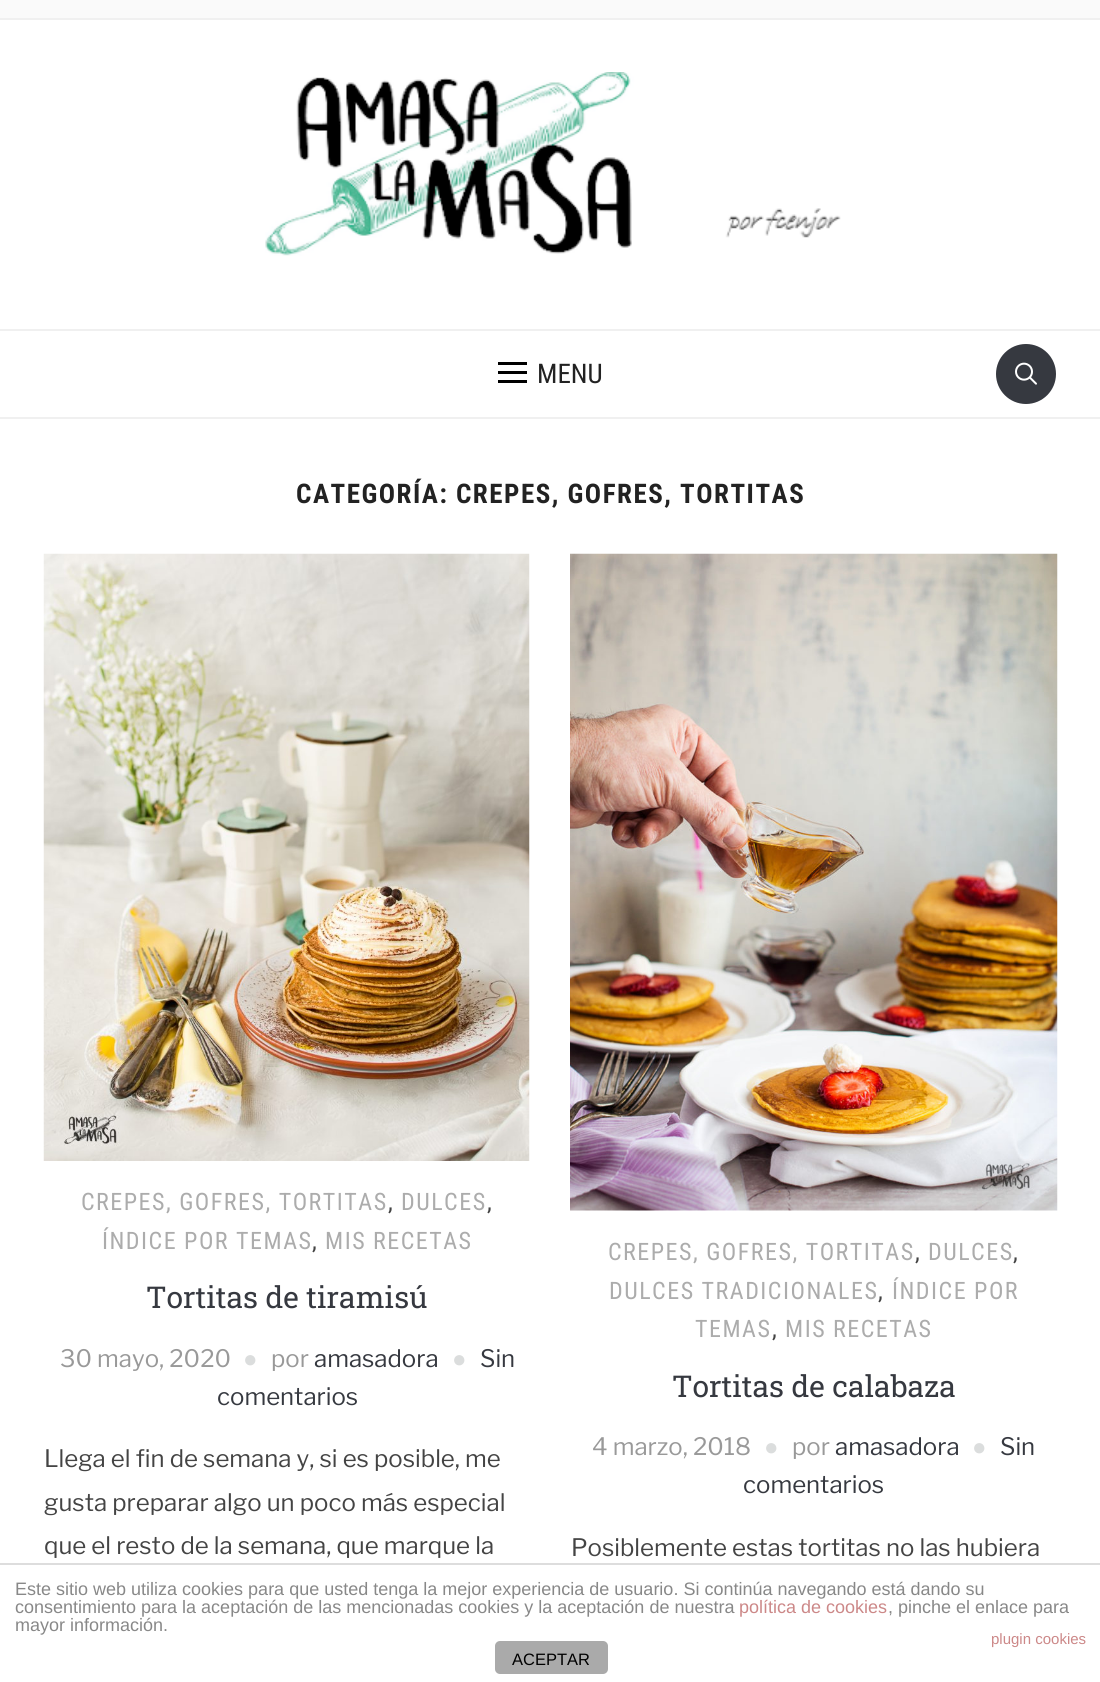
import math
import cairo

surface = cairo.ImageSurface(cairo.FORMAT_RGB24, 1100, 1682)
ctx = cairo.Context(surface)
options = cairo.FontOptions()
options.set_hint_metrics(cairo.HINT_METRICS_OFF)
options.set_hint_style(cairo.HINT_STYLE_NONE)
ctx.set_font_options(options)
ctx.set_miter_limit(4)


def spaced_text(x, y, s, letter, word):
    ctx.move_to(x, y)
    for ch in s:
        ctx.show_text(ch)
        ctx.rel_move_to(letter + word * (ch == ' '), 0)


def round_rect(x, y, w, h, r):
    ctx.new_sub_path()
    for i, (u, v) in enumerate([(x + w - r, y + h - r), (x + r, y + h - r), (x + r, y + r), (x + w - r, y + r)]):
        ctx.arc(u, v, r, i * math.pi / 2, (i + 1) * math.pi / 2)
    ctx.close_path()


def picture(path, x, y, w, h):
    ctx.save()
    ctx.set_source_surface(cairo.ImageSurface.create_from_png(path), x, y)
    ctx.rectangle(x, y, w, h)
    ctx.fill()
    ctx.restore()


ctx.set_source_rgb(1, 1, 1)
ctx.paint()
ctx.set_source_rgb(0.98, 0.98, 0.98)
ctx.rectangle(0, 0, 1100, 18)
ctx.fill()
ctx.set_source_rgb(0.941, 0.941, 0.941)
ctx.rectangle(0, 18, 1100, 2)
ctx.fill()
picture("img1.png", 265, 72, 576, 184)
ctx.rectangle(0, 329, 1100, 2)
ctx.fill()
ctx.rectangle(0, 417, 1100, 2)
ctx.fill()
ctx.set_source_rgb(0, 0, 0)
ctx.rectangle(498, 362, 29, 3)
ctx.fill()
ctx.rectangle(498, 371, 29, 3)
ctx.fill()
ctx.rectangle(498, 380, 29, 3)
ctx.fill()
ctx.select_font_face("Roboto Condensed")
ctx.set_font_size(27)
ctx.set_source_rgb(0.133, 0.133, 0.133)
ctx.move_to(537, 383)
ctx.show_text("MENU")
ctx.set_source_rgb(0.212, 0.224, 0.251)
ctx.new_path()
ctx.arc(1026, 374, 30, 0, 2 * math.pi)
ctx.fill()
picture("img2.png", 1015, 362, 22, 23)
ctx.select_font_face("Roboto Condensed", cairo.FONT_SLANT_NORMAL, cairo.FONT_WEIGHT_BOLD)
ctx.set_source_rgb(0.133, 0.133, 0.133)
spaced_text(296, 503, "CATEGORÍA: CREPES, GOFRES, TORTITAS", 1.5, 0)
picture("img3.png", 43, 553, 487, 608)
ctx.select_font_face("Roboto Condensed")
ctx.set_font_size(24)
ctx.set_source_rgb(0.675, 0.675, 0.675)
spaced_text(81, 1210, "CREPES, GOFRES, TORTITAS", 1.5, 0)
ctx.set_source_rgb(0.267, 0.267, 0.267)
spaced_text(388, 1210, ",", 1.5, 0)
ctx.set_source_rgb(0.675, 0.675, 0.675)
spaced_text(401, 1210, "DULCES", 1.5, 0)
ctx.set_source_rgb(0.267, 0.267, 0.267)
spaced_text(487, 1210, ",", 1.5, 0)
ctx.set_source_rgb(0.675, 0.675, 0.675)
spaced_text(102, 1249, "ÍNDICE POR TEMAS", 1.5, 0)
ctx.set_source_rgb(0.267, 0.267, 0.267)
spaced_text(312, 1249, ",", 1.5, 0)
ctx.set_source_rgb(0.675, 0.675, 0.675)
spaced_text(325, 1249, "MIS RECETAS", 1.5, 0)
ctx.select_font_face("Roboto Slab")
ctx.set_font_size(30)
ctx.set_source_rgb(0.212, 0.224, 0.251)
ctx.move_to(146, 1308)
ctx.show_text("Tortitas de tiramisú")
ctx.select_font_face("Libre Franklin")
ctx.set_font_size(24)
ctx.set_source_rgb(0.6, 0.6, 0.6)
ctx.move_to(60, 1367)
ctx.show_text("30 mayo, 2020")
ctx.select_font_face("Liberation Sans")
ctx.set_source_rgb(0.859, 0.867, 0.867)
ctx.move_to(243, 1367)
ctx.show_text("●")
ctx.select_font_face("Libre Franklin")
ctx.set_source_rgb(0.6, 0.6, 0.6)
ctx.move_to(271, 1367)
ctx.show_text("por")
ctx.set_source_rgb(0.212, 0.224, 0.251)
ctx.move_to(314, 1367)
ctx.show_text("amasadora")
ctx.select_font_face("Liberation Sans")
ctx.set_source_rgb(0.859, 0.867, 0.867)
ctx.move_to(452, 1367)
ctx.show_text("●")
ctx.select_font_face("Libre Franklin")
ctx.set_source_rgb(0.212, 0.224, 0.251)
ctx.move_to(480, 1367)
ctx.show_text("Sin")
ctx.move_to(217, 1405)
ctx.show_text("comentarios")
ctx.set_source_rgb(0.267, 0.267, 0.267)
ctx.move_to(44, 1467)
ctx.show_text("Llega el fin de semana y, si es posible, me")
ctx.move_to(44, 1511)
ctx.show_text("gusta preparar algo un poco más especial")
ctx.move_to(44, 1554)
ctx.show_text("que el resto de la semana, que marque la")
picture("img4.png", 570, 553, 488, 658)
ctx.select_font_face("Roboto Condensed")
ctx.set_source_rgb(0.675, 0.675, 0.675)
spaced_text(608, 1260, "CREPES, GOFRES, TORTITAS", 1.5, 0)
ctx.set_source_rgb(0.267, 0.267, 0.267)
spaced_text(915, 1260, ",", 1.5, 0)
ctx.set_source_rgb(0.675, 0.675, 0.675)
spaced_text(928, 1260, "DULCES", 1.5, 0)
ctx.set_source_rgb(0.267, 0.267, 0.267)
spaced_text(1013, 1260, ",", 1.5, 0)
ctx.set_source_rgb(0.675, 0.675, 0.675)
spaced_text(609, 1299, "DULCES TRADICIONALES", 1.5, 0)
ctx.set_source_rgb(0.267, 0.267, 0.267)
spaced_text(878, 1299, ",", 1.5, 0)
ctx.set_source_rgb(0.675, 0.675, 0.675)
spaced_text(892, 1299, "ÍNDICE POR", 1.5, 0)
spaced_text(695, 1337, "TEMAS", 1.5, 0)
ctx.set_source_rgb(0.267, 0.267, 0.267)
spaced_text(772, 1337, ",", 1.5, 0)
ctx.set_source_rgb(0.675, 0.675, 0.675)
spaced_text(785, 1337, "MIS RECETAS", 1.5, 0)
ctx.select_font_face("Roboto Slab")
ctx.set_font_size(30)
ctx.set_source_rgb(0.212, 0.224, 0.251)
ctx.move_to(672, 1397)
ctx.show_text("Tortitas de calabaza")
ctx.select_font_face("Libre Franklin")
ctx.set_font_size(24)
ctx.set_source_rgb(0.6, 0.6, 0.6)
ctx.move_to(592, 1455)
ctx.show_text("4 marzo, 2018")
ctx.select_font_face("Liberation Sans")
ctx.set_source_rgb(0.859, 0.867, 0.867)
ctx.move_to(764, 1455)
ctx.show_text("●")
ctx.select_font_face("Libre Franklin")
ctx.set_source_rgb(0.6, 0.6, 0.6)
ctx.move_to(792, 1455)
ctx.show_text("por")
ctx.set_source_rgb(0.212, 0.224, 0.251)
ctx.move_to(835, 1455)
ctx.show_text("amasadora")
ctx.select_font_face("Liberation Sans")
ctx.set_source_rgb(0.859, 0.867, 0.867)
ctx.move_to(972, 1455)
ctx.show_text("●")
ctx.select_font_face("Libre Franklin")
ctx.set_source_rgb(0.212, 0.224, 0.251)
ctx.move_to(1000, 1455)
ctx.show_text("Sin")
ctx.move_to(743, 1493)
ctx.show_text("comentarios")
ctx.set_source_rgb(0.267, 0.267, 0.267)
ctx.move_to(571, 1556)
ctx.show_text("Posiblemente estas tortitas no las hubiera")
ctx.set_source_rgb(0.867, 0.867, 0.867)
ctx.rectangle(0, 1563, 1100, 2)
ctx.fill()
ctx.select_font_face("Liberation Sans")
ctx.set_font_size(18)
ctx.set_source_rgb(0.533, 0.533, 0.533)
ctx.move_to(15, 1595)
ctx.show_text("Este sitio web utiliza cookies para que usted tenga la mejor experiencia de usuario. Si continúa navegando está dando su")
ctx.move_to(15, 1613)
ctx.show_text("consentimiento para la aceptación de las mencionadas cookies y la aceptación de nuestra")
ctx.set_source_rgb(0.8, 0.533, 0.533)
ctx.move_to(739, 1613)
ctx.show_text("política de cookies")
ctx.set_source_rgb(0.533, 0.533, 0.533)
ctx.move_to(888, 1613)
ctx.show_text(", pinche el enlace para")
ctx.move_to(15, 1631)
ctx.show_text("mayor información.")
ctx.set_font_size(15)
ctx.set_source_rgb(0.8, 0.533, 0.533)
ctx.move_to(991, 1644)
ctx.show_text("plugin cookies")
ctx.set_source_rgb(0.667, 0.667, 0.667)
round_rect(495, 1641, 113, 33, 5)
ctx.fill()
ctx.set_font_size(16.5)
ctx.set_source_rgb(0, 0, 0)
ctx.move_to(512, 1665)
ctx.show_text("ACEPTAR")
surface.write_to_png("page.png")
